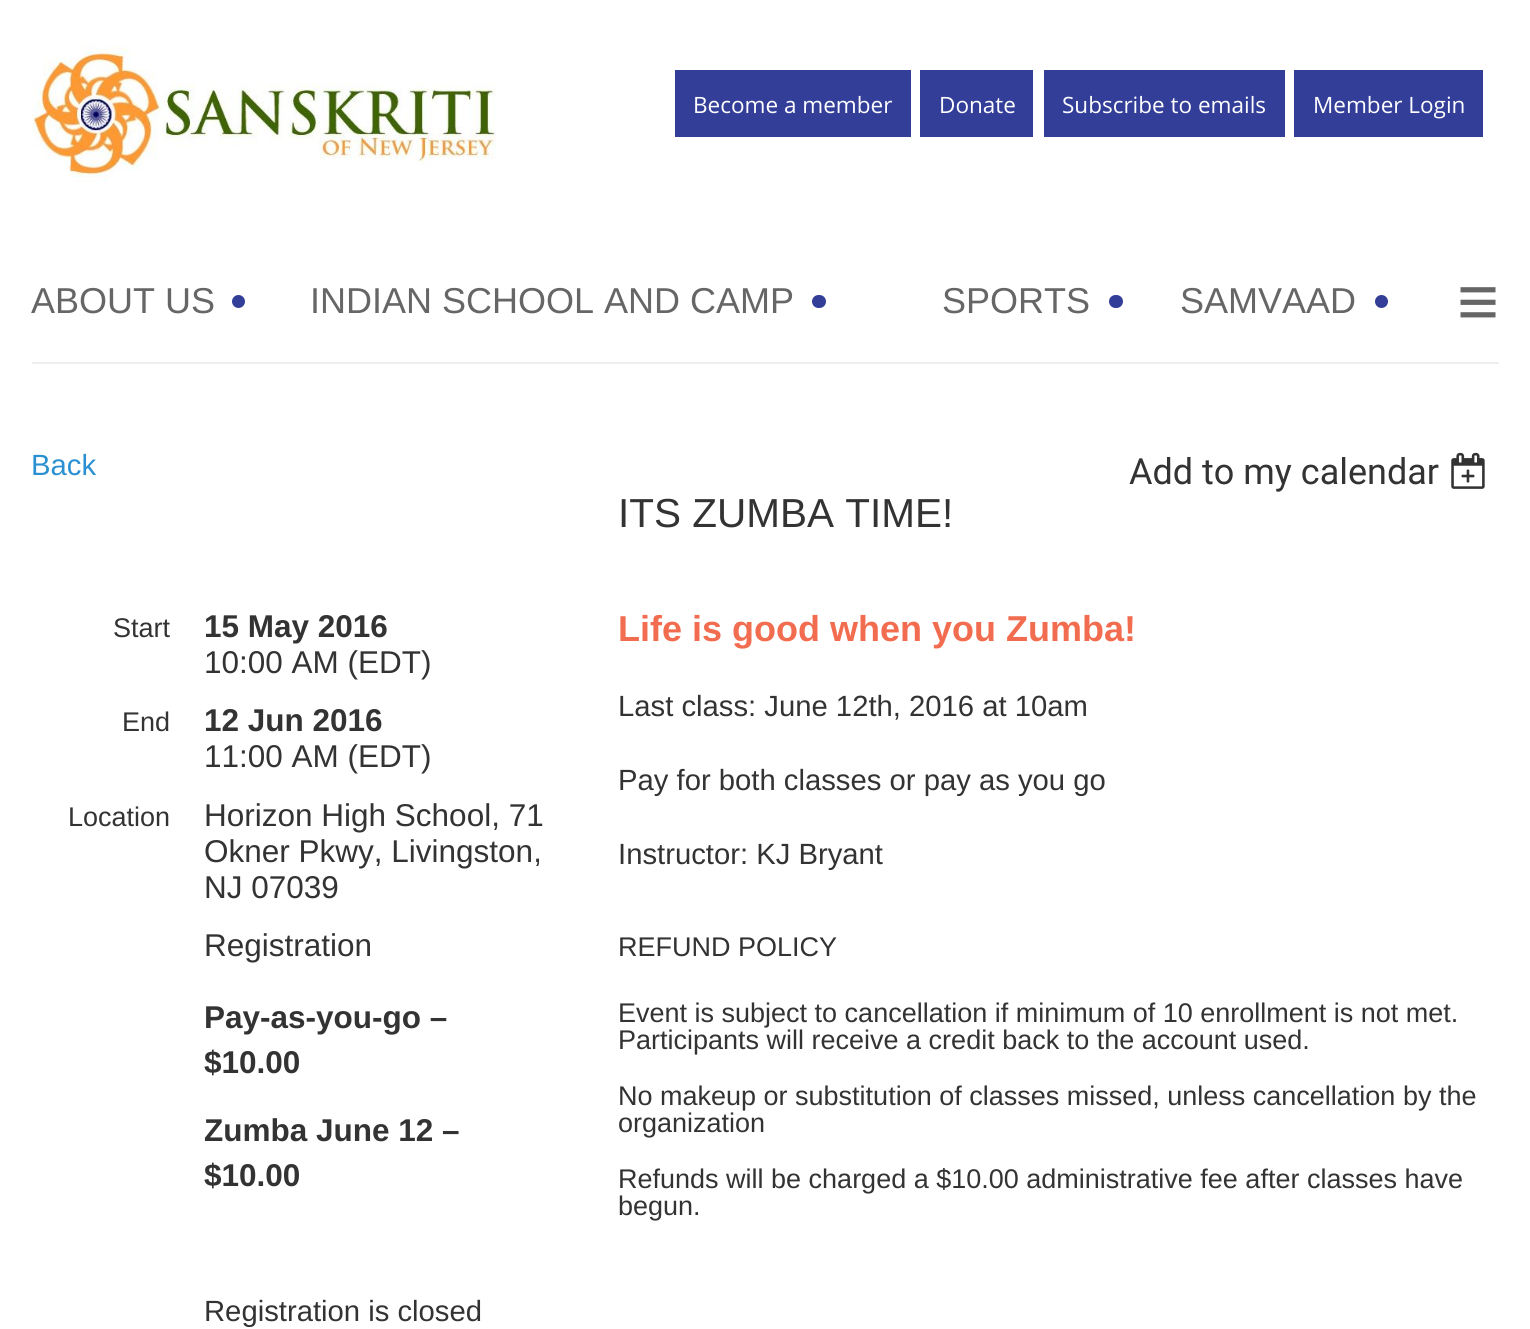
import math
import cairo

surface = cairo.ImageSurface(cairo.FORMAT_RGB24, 1530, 1329)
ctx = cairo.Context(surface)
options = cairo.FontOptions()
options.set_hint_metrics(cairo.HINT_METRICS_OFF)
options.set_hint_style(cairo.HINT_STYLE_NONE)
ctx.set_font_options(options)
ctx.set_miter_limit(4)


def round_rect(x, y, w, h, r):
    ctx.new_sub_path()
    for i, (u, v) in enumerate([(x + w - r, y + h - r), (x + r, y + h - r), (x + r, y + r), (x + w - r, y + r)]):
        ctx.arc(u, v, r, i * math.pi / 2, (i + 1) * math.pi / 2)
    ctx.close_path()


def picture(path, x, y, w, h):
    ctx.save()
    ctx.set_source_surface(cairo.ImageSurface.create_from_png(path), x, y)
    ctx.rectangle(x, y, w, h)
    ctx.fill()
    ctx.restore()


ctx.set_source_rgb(1, 1, 1)
ctx.paint()
picture("img1.png", 32, 45, 464, 137)
ctx.set_source_rgb(0.2, 0.243, 0.6)
ctx.rectangle(675, 70, 236, 67)
ctx.fill()
ctx.select_font_face("Open Sans")
ctx.set_font_size(22.5)
ctx.set_source_rgb(1, 1, 1)
ctx.move_to(693, 113)
ctx.show_text("Become a member")
ctx.set_source_rgb(0.2, 0.243, 0.6)
ctx.rectangle(920, 70, 113, 67)
ctx.fill()
ctx.set_source_rgb(1, 1, 1)
ctx.move_to(939, 113)
ctx.show_text("Donate")
ctx.set_source_rgb(0.2, 0.243, 0.6)
ctx.rectangle(1044, 70, 241, 67)
ctx.fill()
ctx.set_source_rgb(1, 1, 1)
ctx.move_to(1062, 113)
ctx.show_text("Subscribe to emails")
ctx.set_source_rgb(0.2, 0.243, 0.6)
ctx.rectangle(1294, 70, 189, 67)
ctx.fill()
ctx.set_source_rgb(1, 1, 1)
ctx.move_to(1313, 113)
ctx.show_text("Member Login")
ctx.set_source_rgb(0.933, 0.933, 0.933)
ctx.rectangle(32, 362, 1467, 2)
ctx.fill()
ctx.select_font_face("Liberation Sans")
ctx.set_font_size(36)
ctx.set_source_rgb(0.4, 0.4, 0.4)
ctx.move_to(31, 313)
ctx.show_text("ABOUT US")
ctx.set_source_rgb(0.2, 0.243, 0.6)
ctx.new_path()
ctx.arc(238.5, 301.5, 6.5, 0, 2 * math.pi)
ctx.fill()
ctx.set_source_rgb(0.4, 0.4, 0.4)
ctx.move_to(310, 313)
ctx.show_text("INDIAN SCHOOL AND CAMP")
ctx.set_source_rgb(0.2, 0.243, 0.6)
round_rect(812, 295, 14, 13, 6.5)
ctx.fill()
ctx.set_source_rgb(0.4, 0.4, 0.4)
ctx.move_to(942, 313)
ctx.show_text("SPORTS")
ctx.set_source_rgb(0.2, 0.243, 0.6)
round_rect(1109, 295, 14, 13, 6.5)
ctx.fill()
ctx.set_source_rgb(0.4, 0.4, 0.4)
ctx.move_to(1180, 313)
ctx.show_text("SAMVAAD")
ctx.set_source_rgb(0.2, 0.243, 0.6)
ctx.new_path()
ctx.arc(1381.5, 301.5, 6.5, 0, 2 * math.pi)
ctx.fill()
ctx.set_font_size(72)
ctx.set_source_rgb(0.4, 0.4, 0.4)
ctx.move_to(1457, 326)
ctx.show_text("≡")
ctx.set_font_size(29.25)
ctx.set_source_rgb(0.169, 0.565, 0.82)
ctx.move_to(31, 475)
ctx.show_text("Back")
ctx.select_font_face("Roboto")
ctx.set_font_size(36)
ctx.set_source_rgb(0.2, 0.2, 0.2)
ctx.move_to(1129, 484)
ctx.show_text("Add to my calendar")
picture("img2.png", 1451, 452, 34, 37)
ctx.select_font_face("Liberation Sans")
ctx.set_font_size(40.5)
ctx.move_to(618, 527)
ctx.show_text("ITS ZUMBA TIME!")
ctx.set_font_size(27)
ctx.move_to(113, 637)
ctx.show_text("Start")
ctx.select_font_face("Liberation Sans", cairo.FONT_SLANT_NORMAL, cairo.FONT_WEIGHT_BOLD)
ctx.set_font_size(31.5)
ctx.move_to(204, 637)
ctx.show_text("15 May 2016")
ctx.select_font_face("Liberation Sans")
ctx.move_to(204, 673)
ctx.show_text("10:00 AM (EDT)")
ctx.set_font_size(27)
ctx.move_to(122, 731)
ctx.show_text("End")
ctx.select_font_face("Liberation Sans", cairo.FONT_SLANT_NORMAL, cairo.FONT_WEIGHT_BOLD)
ctx.set_font_size(31.5)
ctx.move_to(204, 731)
ctx.show_text("12 Jun 2016")
ctx.select_font_face("Liberation Sans")
ctx.move_to(204, 767)
ctx.show_text("11:00 AM (EDT)")
ctx.set_font_size(27)
ctx.move_to(68, 826)
ctx.show_text("Location")
ctx.set_font_size(31.5)
ctx.move_to(204, 826)
ctx.show_text("Horizon High School, 71")
ctx.move_to(204, 862)
ctx.show_text("Okner Pkwy, Livingston,")
ctx.move_to(204, 898)
ctx.show_text("NJ 07039")
ctx.move_to(204, 956)
ctx.show_text("Registration")
ctx.select_font_face("Liberation Sans", cairo.FONT_SLANT_NORMAL, cairo.FONT_WEIGHT_BOLD)
ctx.move_to(204, 1028)
ctx.show_text("Pay-as-you-go –")
ctx.move_to(204, 1073)
ctx.show_text("$10.00")
ctx.move_to(204, 1141)
ctx.show_text("Zumba June 12 –")
ctx.move_to(204, 1186)
ctx.show_text("$10.00")
ctx.select_font_face("Liberation Sans")
ctx.set_font_size(29.25)
ctx.move_to(204, 1321)
ctx.show_text("Registration is closed")
ctx.select_font_face("Liberation Sans", cairo.FONT_SLANT_NORMAL, cairo.FONT_WEIGHT_BOLD)
ctx.set_font_size(36)
ctx.set_source_rgb(0.949, 0.424, 0.31)
ctx.move_to(618, 641)
ctx.show_text("Life is good when you Zumba!")
ctx.select_font_face("Liberation Sans")
ctx.set_font_size(29.25)
ctx.set_source_rgb(0.2, 0.2, 0.2)
ctx.move_to(618, 716)
ctx.show_text("Last class: June 12th, 2016 at 10am")
ctx.move_to(618, 790)
ctx.show_text("Pay for both classes or pay as you go")
ctx.move_to(618, 864)
ctx.show_text("Instructor: KJ Bryant")
ctx.set_font_size(27)
ctx.move_to(618, 956)
ctx.show_text("REFUND POLICY")
ctx.move_to(618, 1022)
ctx.show_text("Event is subject to cancellation if minimum of 10 enrollment is not met.")
ctx.move_to(618, 1049)
ctx.show_text("Participants will receive a credit back to the account used.")
ctx.move_to(618, 1105)
ctx.show_text("No makeup or substitution of classes missed, unless cancellation by the")
ctx.move_to(618, 1132)
ctx.show_text("organization")
ctx.move_to(618, 1188)
ctx.show_text("Refunds will be charged a $10.00 administrative fee after classes have")
ctx.move_to(618, 1215)
ctx.show_text("begun.")
surface.write_to_png("page.png")
